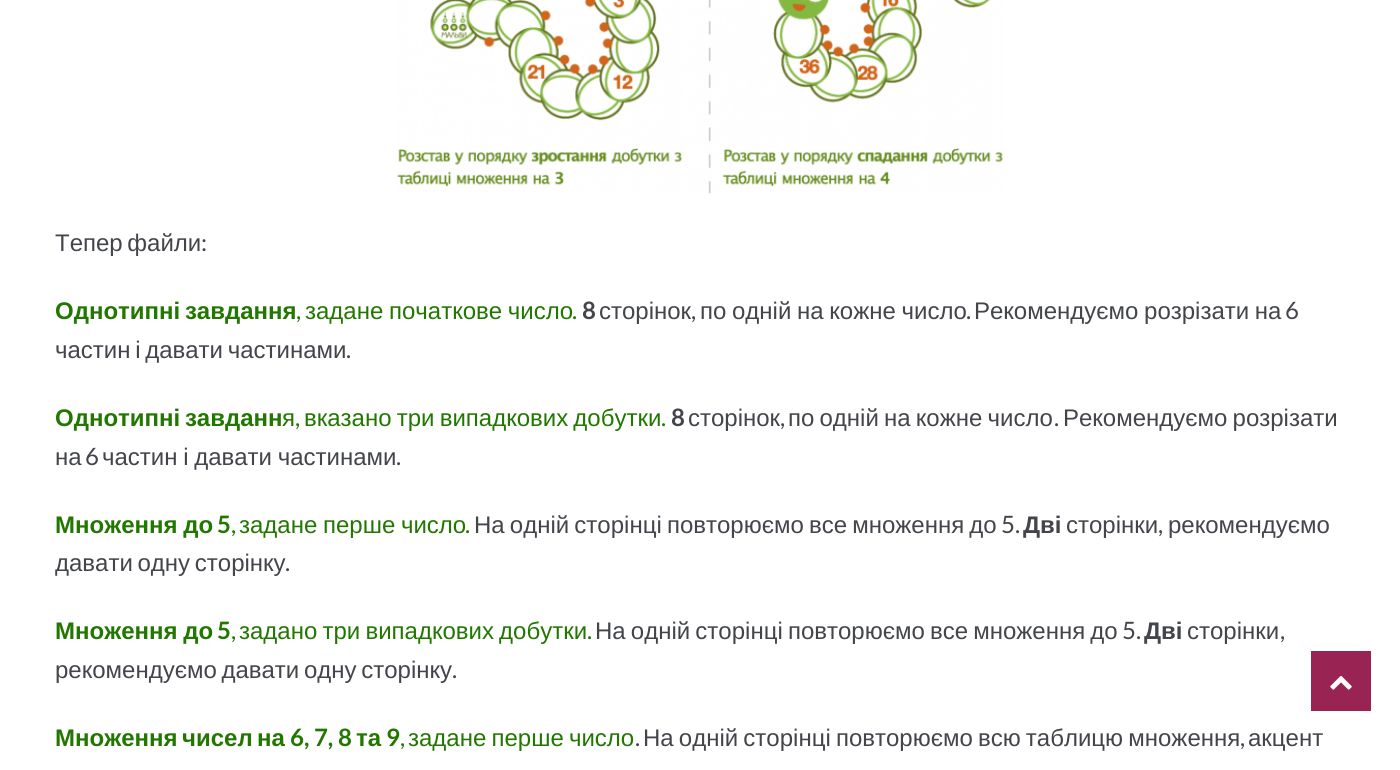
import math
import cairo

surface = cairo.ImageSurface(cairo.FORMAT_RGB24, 1400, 770)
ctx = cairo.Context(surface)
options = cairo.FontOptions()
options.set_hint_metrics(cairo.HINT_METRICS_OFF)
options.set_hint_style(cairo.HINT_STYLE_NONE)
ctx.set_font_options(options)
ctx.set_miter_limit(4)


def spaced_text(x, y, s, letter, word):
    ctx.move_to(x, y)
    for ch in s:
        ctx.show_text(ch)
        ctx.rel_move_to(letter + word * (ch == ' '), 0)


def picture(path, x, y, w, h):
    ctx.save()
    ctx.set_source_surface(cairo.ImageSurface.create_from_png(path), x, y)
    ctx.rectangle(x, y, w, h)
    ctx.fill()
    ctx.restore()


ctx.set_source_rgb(1, 1, 1)
ctx.paint()
picture("img1.png", 397, 0, 606, 194)
ctx.select_font_face("Liberation Sans")
ctx.set_font_size(24)
ctx.set_source_rgb(0.263, 0.271, 0.294)
spaced_text(55, 251, "Тепер файли", 0, -2)
ctx.select_font_face("Lato")
ctx.move_to(201, 251)
ctx.show_text(":")
ctx.select_font_face("Liberation Sans", cairo.FONT_SLANT_NORMAL, cairo.FONT_WEIGHT_BOLD)
ctx.set_source_rgb(0.129, 0.467, 0)
spaced_text(55, 319, "Однотипні завдання", 0, -2)
ctx.select_font_face("Lato")
ctx.move_to(296, 319)
ctx.show_text(",")
ctx.select_font_face("Liberation Sans")
spaced_text(305, 319, "задане початкове число", 0, -1)
ctx.select_font_face("Lato")
ctx.move_to(572, 319)
ctx.show_text(".")
ctx.select_font_face("Lato", cairo.FONT_SLANT_NORMAL, cairo.FONT_WEIGHT_BOLD)
ctx.set_source_rgb(0.263, 0.271, 0.294)
ctx.move_to(582, 319)
ctx.show_text("8")
ctx.select_font_face("Liberation Sans")
ctx.move_to(599, 319)
ctx.show_text("сторінок")
ctx.select_font_face("Lato")
ctx.move_to(691, 319)
ctx.show_text(",")
ctx.select_font_face("Liberation Sans")
spaced_text(700, 319, "по одній на кожне число", 0, -1)
ctx.select_font_face("Lato")
ctx.move_to(966, 319)
ctx.show_text(".")
ctx.select_font_face("Liberation Sans")
spaced_text(974, 319, "Рекомендуємо розрізати на", 0, -1)
ctx.select_font_face("Lato")
ctx.move_to(1285, 319)
ctx.show_text("6")
ctx.select_font_face("Liberation Sans")
spaced_text(55, 358, "частин і давати частинами", 0, -2)
ctx.select_font_face("Lato")
ctx.move_to(346, 358)
ctx.show_text(".")
ctx.select_font_face("Liberation Sans", cairo.FONT_SLANT_NORMAL, cairo.FONT_WEIGHT_BOLD)
ctx.set_source_rgb(0.129, 0.467, 0)
spaced_text(55, 426, "Однотипні завданн", 0, -2)
ctx.select_font_face("Liberation Sans")
ctx.move_to(282, 426)
ctx.show_text("я")
ctx.select_font_face("Lato")
ctx.move_to(295, 426)
ctx.show_text(",")
ctx.select_font_face("Liberation Sans")
spaced_text(304, 426, "вказано три випадкових добутки", 0, -1.5)
ctx.select_font_face("Lato")
ctx.move_to(661, 426)
ctx.show_text(".")
ctx.select_font_face("Lato", cairo.FONT_SLANT_NORMAL, cairo.FONT_WEIGHT_BOLD)
ctx.set_source_rgb(0.263, 0.271, 0.294)
ctx.move_to(671, 426)
ctx.show_text("8")
ctx.select_font_face("Liberation Sans")
ctx.move_to(688, 426)
ctx.show_text("сторінок")
ctx.select_font_face("Lato")
ctx.move_to(780, 426)
ctx.show_text(",")
ctx.select_font_face("Liberation Sans")
spaced_text(788, 426, "по одній на кожне число", 0, -1.5)
ctx.select_font_face("Lato")
ctx.move_to(1054, 426)
ctx.show_text(".")
ctx.select_font_face("Liberation Sans")
spaced_text(1063, 426, "Рекомендуємо розрізати", 0, -1.5)
ctx.move_to(55, 465)
ctx.show_text("на")
ctx.select_font_face("Lato")
ctx.move_to(85, 465)
ctx.show_text("6")
ctx.select_font_face("Liberation Sans")
spaced_text(102, 465, "частин і давати частинами", 0, -1)
ctx.select_font_face("Lato")
ctx.move_to(396, 465)
ctx.show_text(".")
ctx.select_font_face("Liberation Sans", cairo.FONT_SLANT_NORMAL, cairo.FONT_WEIGHT_BOLD)
ctx.set_source_rgb(0.129, 0.467, 0)
spaced_text(55, 533, "Множення до", 0, -1)
ctx.select_font_face("Lato", cairo.FONT_SLANT_NORMAL, cairo.FONT_WEIGHT_BOLD)
ctx.move_to(217, 533)
ctx.show_text("5")
ctx.select_font_face("Lato")
ctx.move_to(231, 533)
ctx.show_text(",")
ctx.select_font_face("Liberation Sans")
spaced_text(239, 533, "задане перше число", 0, -1)
ctx.select_font_face("Lato")
ctx.move_to(465, 533)
ctx.show_text(".")
ctx.select_font_face("Liberation Sans")
ctx.set_source_rgb(0.263, 0.271, 0.294)
spaced_text(474, 533, "На одній сторінці повторюємо все множення до", 0, -1.5)
ctx.select_font_face("Lato")
ctx.move_to(1001, 533)
ctx.show_text("5.")
ctx.select_font_face("Liberation Sans", cairo.FONT_SLANT_NORMAL, cairo.FONT_WEIGHT_BOLD)
ctx.move_to(1023, 533)
ctx.show_text("Дві")
ctx.select_font_face("Liberation Sans")
ctx.move_to(1066, 533)
ctx.show_text("сторінки")
ctx.select_font_face("Lato")
ctx.move_to(1158, 533)
ctx.show_text(",")
ctx.select_font_face("Liberation Sans")
ctx.move_to(1168, 533)
ctx.show_text("рекомендуємо")
spaced_text(55, 571, "давати одну сторінку", 0, -2)
ctx.select_font_face("Lato")
ctx.move_to(285, 571)
ctx.show_text(".")
ctx.select_font_face("Liberation Sans", cairo.FONT_SLANT_NORMAL, cairo.FONT_WEIGHT_BOLD)
ctx.set_source_rgb(0.129, 0.467, 0)
spaced_text(55, 639, "Множення до", 0, -1)
ctx.select_font_face("Lato", cairo.FONT_SLANT_NORMAL, cairo.FONT_WEIGHT_BOLD)
ctx.move_to(217, 639)
ctx.show_text("5")
ctx.select_font_face("Lato")
ctx.move_to(231, 639)
ctx.show_text(",")
ctx.select_font_face("Liberation Sans")
spaced_text(239, 639, "задано три випадкових добутки", 0, -1.5)
ctx.select_font_face("Lato")
ctx.move_to(587, 639)
ctx.show_text(".")
ctx.select_font_face("Liberation Sans")
ctx.set_source_rgb(0.263, 0.271, 0.294)
spaced_text(595, 639, "На одній сторінці повторюємо все множення до", 0, -1.5)
ctx.select_font_face("Lato")
ctx.move_to(1122, 639)
ctx.show_text("5.")
ctx.select_font_face("Liberation Sans", cairo.FONT_SLANT_NORMAL, cairo.FONT_WEIGHT_BOLD)
ctx.move_to(1144, 639)
ctx.show_text("Дві")
ctx.select_font_face("Liberation Sans")
ctx.move_to(1187, 639)
ctx.show_text("сторінки")
ctx.select_font_face("Lato")
ctx.move_to(1280, 639)
ctx.show_text(",")
ctx.select_font_face("Liberation Sans")
spaced_text(55, 678, "рекомендуємо давати одну сторінку", 0, -2)
ctx.select_font_face("Lato")
ctx.move_to(452, 678)
ctx.show_text(".")
ctx.select_font_face("Liberation Sans", cairo.FONT_SLANT_NORMAL, cairo.FONT_WEIGHT_BOLD)
ctx.set_source_rgb(0.129, 0.467, 0)
ctx.move_to(55, 746)
ctx.show_text("Множення")
ctx.move_to(182, 746)
ctx.show_text("чисел")
ctx.move_to(257, 746)
ctx.show_text("на")
ctx.select_font_face("Lato", cairo.FONT_SLANT_NORMAL, cairo.FONT_WEIGHT_BOLD)
ctx.move_to(290, 746)
ctx.show_text("6, 7, 8")
ctx.select_font_face("Liberation Sans", cairo.FONT_SLANT_NORMAL, cairo.FONT_WEIGHT_BOLD)
ctx.move_to(356, 746)
ctx.show_text("та")
ctx.select_font_face("Lato", cairo.FONT_SLANT_NORMAL, cairo.FONT_WEIGHT_BOLD)
ctx.move_to(386, 746)
ctx.show_text("9")
ctx.select_font_face("Lato")
ctx.move_to(400, 746)
ctx.show_text(",")
ctx.select_font_face("Liberation Sans")
spaced_text(408, 746, "задане перше число", 0, -1.5)
ctx.select_font_face("Lato")
ctx.set_source_rgb(0.263, 0.271, 0.294)
ctx.move_to(635, 746)
ctx.show_text(".")
ctx.select_font_face("Liberation Sans")
spaced_text(643, 746, "На одній сторінці повторюємо всю таблицю множення", 0, -1.5)
ctx.select_font_face("Lato")
ctx.move_to(1240, 746)
ctx.show_text(",")
ctx.select_font_face("Liberation Sans")
ctx.move_to(1248, 746)
ctx.show_text("акцент")
ctx.set_source_rgb(0.6, 0.137, 0.322)
ctx.rectangle(1311, 651, 60, 60)
ctx.fill()
picture("img2.png", 1330, 675, 22, 15)
surface.write_to_png("page.png")
